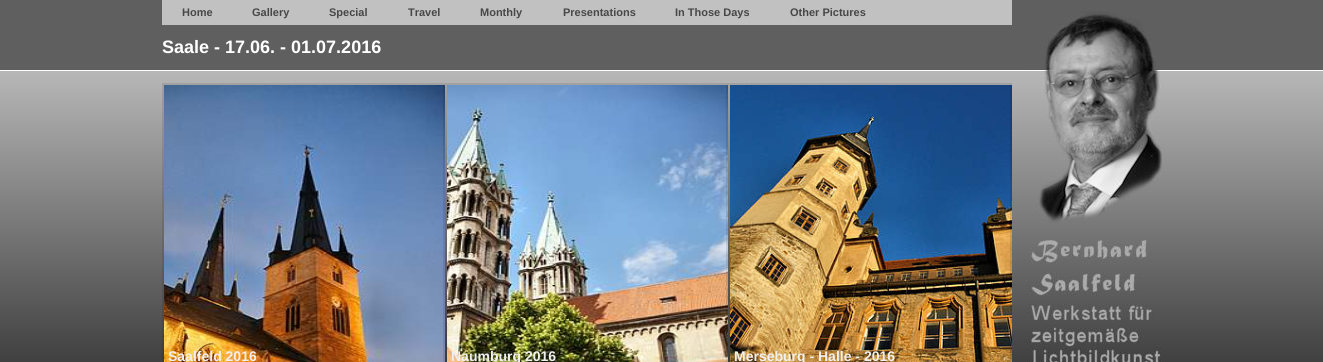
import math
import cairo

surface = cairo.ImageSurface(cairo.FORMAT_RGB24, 1323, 362)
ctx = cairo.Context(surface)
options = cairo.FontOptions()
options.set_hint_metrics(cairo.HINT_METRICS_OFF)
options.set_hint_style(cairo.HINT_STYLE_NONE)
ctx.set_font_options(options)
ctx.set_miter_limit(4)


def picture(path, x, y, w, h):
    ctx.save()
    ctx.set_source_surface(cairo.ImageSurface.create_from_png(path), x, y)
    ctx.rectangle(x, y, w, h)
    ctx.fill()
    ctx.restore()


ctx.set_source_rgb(1, 1, 1)
ctx.paint()
picture("img1.png", 0, 0, 1323, 362)
ctx.set_source_rgb(0.757, 0.757, 0.757)
ctx.rectangle(162, 0, 850, 25)
ctx.fill()
ctx.select_font_face("Liberation Sans", cairo.FONT_SLANT_NORMAL, cairo.FONT_WEIGHT_BOLD)
ctx.set_font_size(11)
ctx.set_source_rgb(0.278, 0.278, 0.278)
ctx.move_to(182, 16)
ctx.show_text("Home")
ctx.move_to(252, 16)
ctx.show_text("Gallery")
ctx.move_to(329, 16)
ctx.show_text("Special")
ctx.move_to(408, 16)
ctx.show_text("Travel")
ctx.move_to(480, 16)
ctx.show_text("Monthly")
ctx.move_to(563, 16)
ctx.show_text("Presentations")
ctx.move_to(675, 16)
ctx.show_text("In Those Days")
ctx.move_to(790, 16)
ctx.show_text("Other Pictures")
picture("img2.png", 1026, 11, 136, 351)
ctx.set_font_size(18)
ctx.set_source_rgb(1, 1, 1)
ctx.move_to(162, 53)
ctx.show_text("Saale - 17.06. - 01.07.2016")
picture("img3.png", 164, 85, 281, 277)
ctx.rectangle(163, 84, 281, 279)
ctx.set_source_rgba(0, 0, 0, 0.1)
ctx.stroke()
ctx.set_font_size(14)
ctx.set_source_rgb(0.941, 0.941, 0.941)
ctx.move_to(168, 361)
ctx.show_text("Saalfeld 2016")
picture("img4.png", 447, 85, 281, 277)
ctx.rectangle(446, 84, 281, 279)
ctx.set_source_rgba(0, 0, 0, 0.1)
ctx.stroke()
ctx.set_source_rgb(0.941, 0.941, 0.941)
ctx.move_to(451, 361)
ctx.show_text("Naumburg 2016")
picture("img5.png", 730, 85, 282, 277)
ctx.rectangle(729, 84, 282, 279)
ctx.set_source_rgba(0, 0, 0, 0.1)
ctx.stroke()
ctx.set_source_rgb(0.941, 0.941, 0.941)
ctx.move_to(734, 361)
ctx.show_text("Merseburg - Halle - 2016")
surface.write_to_png("page.png")
